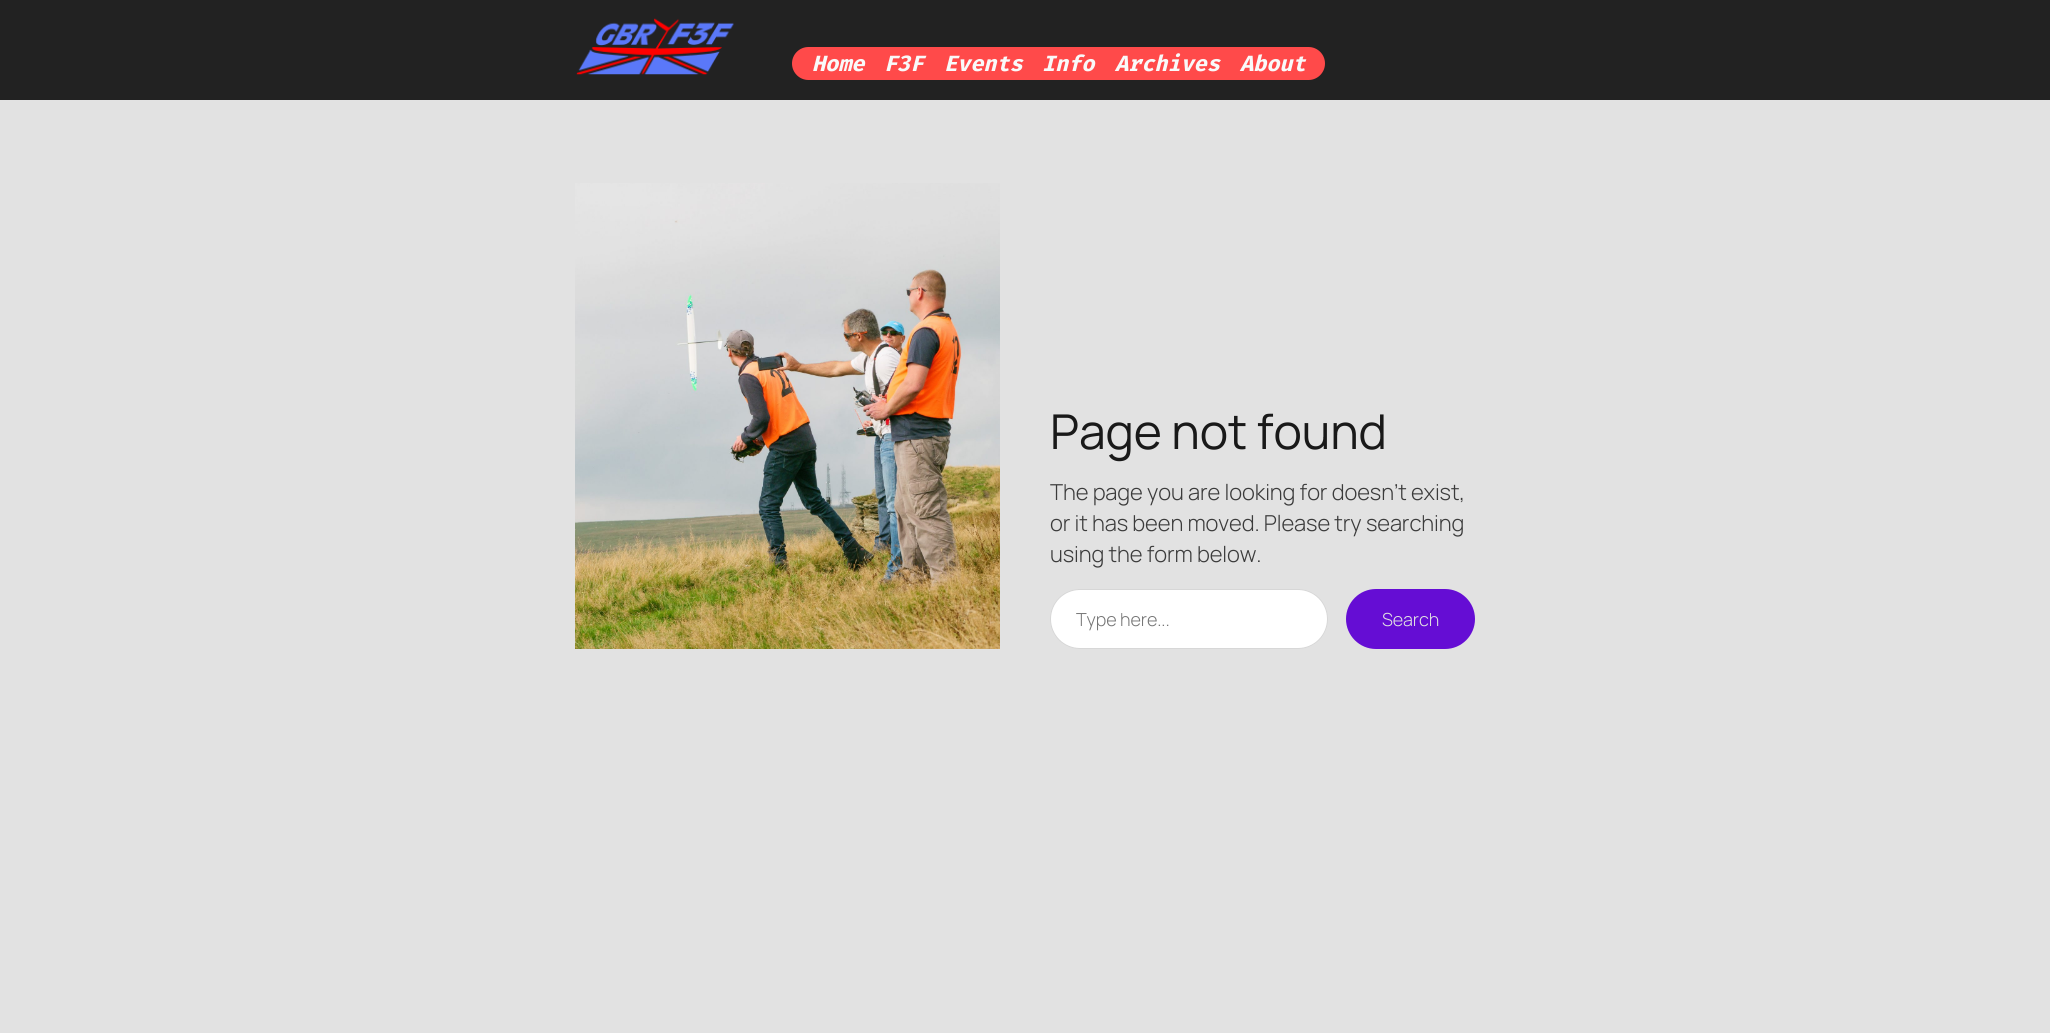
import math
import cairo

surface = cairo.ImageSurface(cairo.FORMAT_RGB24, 2050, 1033)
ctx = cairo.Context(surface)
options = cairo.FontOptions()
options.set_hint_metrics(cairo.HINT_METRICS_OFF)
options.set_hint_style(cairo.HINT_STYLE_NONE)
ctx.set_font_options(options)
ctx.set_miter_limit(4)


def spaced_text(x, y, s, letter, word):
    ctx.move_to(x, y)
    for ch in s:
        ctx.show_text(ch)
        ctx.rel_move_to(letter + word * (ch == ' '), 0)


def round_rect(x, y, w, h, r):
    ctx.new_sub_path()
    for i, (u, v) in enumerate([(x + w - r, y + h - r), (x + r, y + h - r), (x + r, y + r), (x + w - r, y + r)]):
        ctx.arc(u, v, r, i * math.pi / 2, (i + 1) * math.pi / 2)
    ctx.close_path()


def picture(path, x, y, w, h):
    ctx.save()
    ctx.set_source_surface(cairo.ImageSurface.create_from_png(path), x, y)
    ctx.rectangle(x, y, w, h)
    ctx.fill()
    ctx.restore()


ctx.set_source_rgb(0.886, 0.886, 0.886)
ctx.paint()
ctx.set_source_rgb(0.133, 0.133, 0.133)
ctx.rectangle(0, 0, 2050, 100)
ctx.fill()
picture("img1.png", 576, 18, 158, 57)
ctx.set_source_rgb(1, 0.29, 0.29)
round_rect(792, 47, 533, 33, 16.5)
ctx.fill()
ctx.select_font_face("Fira Code", cairo.FONT_SLANT_ITALIC, cairo.FONT_WEIGHT_BOLD)
ctx.set_font_size(22)
ctx.set_source_rgb(0.973, 0.973, 0.973)
spaced_text(812, 71, "Home", -0.1, 0)
spaced_text(884, 71, "F3F", -0.1, 0)
spaced_text(944, 71, "Events", -0.1, 0)
spaced_text(1042, 71, "Info", -0.1, 0)
spaced_text(1115, 71, "Archives", -0.1, 0)
spaced_text(1240, 71, "About", -0.1, 0)
picture("img2.png", 575, 183, 425, 466)
ctx.select_font_face("Manrope")
ctx.set_font_size(48)
ctx.set_source_rgb(0.098, 0.098, 0.098)
spaced_text(1050, 449, "Page not found", -0.1, 0)
ctx.select_font_face("Manrope Light")
ctx.set_font_size(22)
ctx.set_source_rgb(0.231, 0.231, 0.231)
spaced_text(1050, 500, "The page you are looking for doesn’t exist,", -0.1, 0)
spaced_text(1050, 531, "or it has been moved. Please try searching", -0.1, 0)
spaced_text(1050, 562, "using the form below.", -0.1, 0)
ctx.set_source_rgb(1, 1, 1)
round_rect(1050, 589, 278, 60, 30)
ctx.fill()
round_rect(1050.5, 589.5, 277, 59, 29.5)
ctx.set_source_rgba(0.231, 0.231, 0.231, 0.2)
ctx.set_line_width(1)
ctx.stroke()
ctx.set_font_size(18)
ctx.set_source_rgb(0.459, 0.459, 0.459)
spaced_text(1076, 626, "Type here...", -0.1, 0)
ctx.set_source_rgb(0.396, 0.051, 0.831)
round_rect(1346, 589, 129, 60, 30)
ctx.fill()
ctx.set_source_rgb(0.886, 0.886, 0.886)
spaced_text(1382, 626, "Search", -0.1, 0)
surface.write_to_png("page.png")
